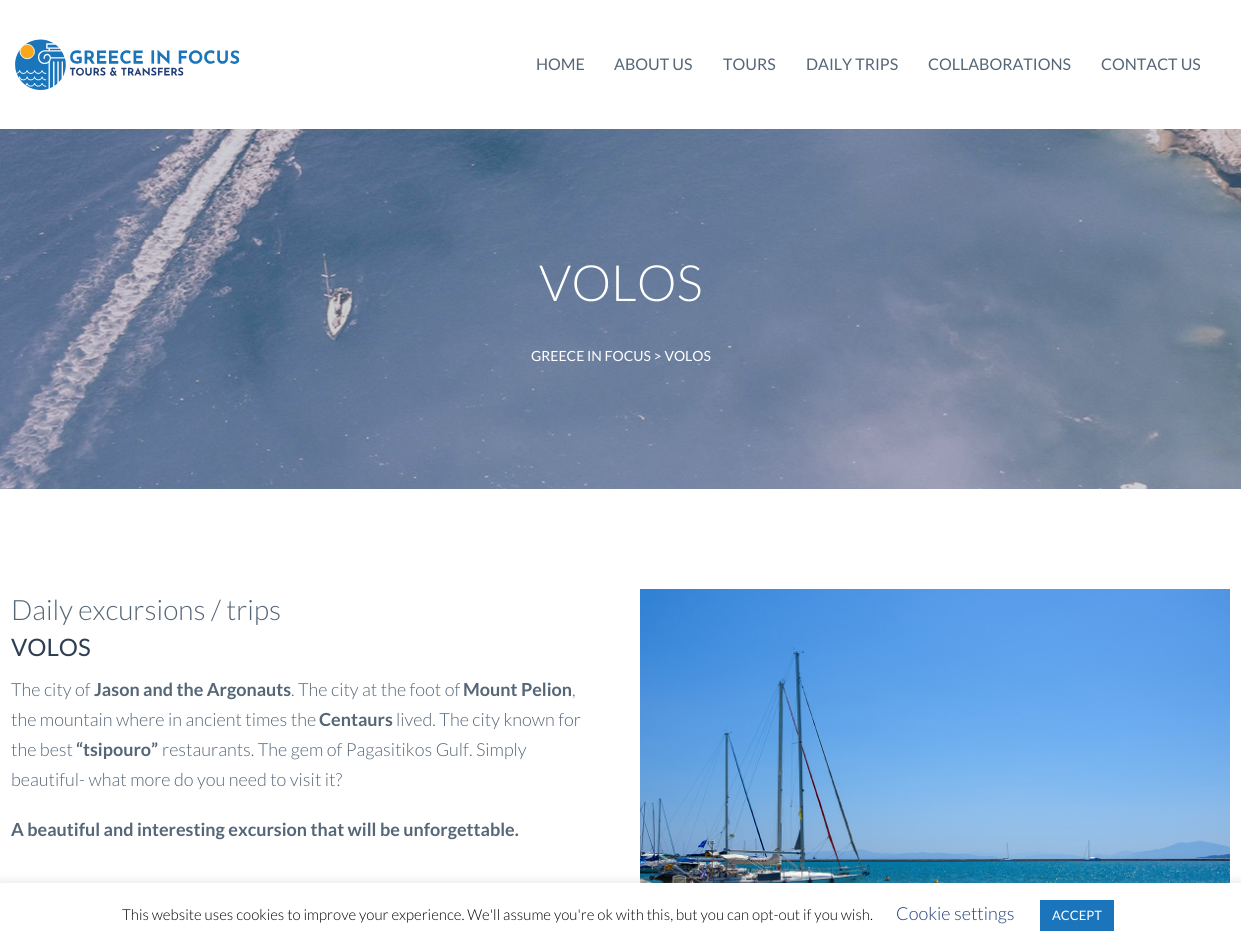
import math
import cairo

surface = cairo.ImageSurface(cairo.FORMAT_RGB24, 1241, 948)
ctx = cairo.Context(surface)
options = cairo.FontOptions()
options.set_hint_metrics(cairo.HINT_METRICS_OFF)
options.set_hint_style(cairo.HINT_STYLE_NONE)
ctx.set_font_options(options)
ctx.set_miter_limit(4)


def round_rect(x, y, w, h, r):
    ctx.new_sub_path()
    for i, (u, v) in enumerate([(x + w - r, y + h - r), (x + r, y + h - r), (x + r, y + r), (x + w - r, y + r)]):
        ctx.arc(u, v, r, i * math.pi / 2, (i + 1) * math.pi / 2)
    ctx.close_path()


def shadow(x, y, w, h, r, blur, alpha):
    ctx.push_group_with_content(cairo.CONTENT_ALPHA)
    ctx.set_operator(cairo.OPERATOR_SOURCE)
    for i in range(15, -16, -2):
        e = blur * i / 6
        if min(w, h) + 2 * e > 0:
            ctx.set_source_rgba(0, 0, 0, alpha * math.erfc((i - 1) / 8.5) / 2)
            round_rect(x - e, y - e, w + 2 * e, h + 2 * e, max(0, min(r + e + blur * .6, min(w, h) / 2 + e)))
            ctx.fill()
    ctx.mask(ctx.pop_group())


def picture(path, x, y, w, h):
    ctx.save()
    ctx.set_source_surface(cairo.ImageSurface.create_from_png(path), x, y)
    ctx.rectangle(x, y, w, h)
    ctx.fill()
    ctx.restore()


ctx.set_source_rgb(1, 1, 1)
ctx.paint()
picture("img1.png", 15, 39, 225, 51)
ctx.select_font_face("Lato")
ctx.set_font_size(16)
ctx.set_source_rgb(0.333, 0.4, 0.467)
ctx.move_to(536, 70)
ctx.show_text("HOME")
ctx.move_to(614, 70)
ctx.show_text("ABOUT US")
ctx.move_to(723, 70)
ctx.show_text("TOURS")
ctx.move_to(806, 70)
ctx.show_text("DAILY TRIPS")
ctx.move_to(928, 70)
ctx.show_text("COLLABORATIONS")
ctx.move_to(1101, 70)
ctx.show_text("CONTACT US")
picture("img2.png", 0, 129, 1241, 360)
ctx.select_font_face("Lato Light")
ctx.set_font_size(50)
ctx.set_source_rgb(1, 1, 1)
ctx.move_to(539, 301)
ctx.show_text("VOLOS")
ctx.select_font_face("Lato")
ctx.set_font_size(14)
ctx.move_to(531, 361)
ctx.show_text("GREECE IN FOCUS > VOLOS")
ctx.select_font_face("Lato Light")
ctx.set_font_size(28)
ctx.set_source_rgb(0.333, 0.4, 0.467)
ctx.move_to(11, 620)
ctx.show_text("Daily excursions / trips")
ctx.select_font_face("Lato")
ctx.set_font_size(24)
ctx.set_source_rgb(0.173, 0.243, 0.314)
ctx.move_to(11, 656)
ctx.show_text("VOLOS")
ctx.select_font_face("Lato Light")
ctx.set_font_size(18)
ctx.set_source_rgb(0.333, 0.4, 0.467)
ctx.move_to(11, 696)
ctx.show_text("The city of")
ctx.select_font_face("Lato", cairo.FONT_SLANT_NORMAL, cairo.FONT_WEIGHT_BOLD)
ctx.move_to(94, 696)
ctx.show_text("Jason and the Argonauts")
ctx.select_font_face("Lato Light")
ctx.move_to(291, 696)
ctx.show_text(". The city at the foot of")
ctx.select_font_face("Lato", cairo.FONT_SLANT_NORMAL, cairo.FONT_WEIGHT_BOLD)
ctx.move_to(463, 696)
ctx.show_text("Mount Pelion")
ctx.select_font_face("Lato Light")
ctx.move_to(572, 696)
ctx.show_text(",")
ctx.move_to(11, 726)
ctx.show_text("the mountain where in ancient times the")
ctx.select_font_face("Lato", cairo.FONT_SLANT_NORMAL, cairo.FONT_WEIGHT_BOLD)
ctx.move_to(319, 726)
ctx.show_text("Centaurs")
ctx.select_font_face("Lato Light")
ctx.move_to(396, 726)
ctx.show_text("lived. The city known for")
ctx.move_to(11, 756)
ctx.show_text("the best")
ctx.select_font_face("Lato", cairo.FONT_SLANT_NORMAL, cairo.FONT_WEIGHT_BOLD)
ctx.move_to(76, 756)
ctx.show_text("“tsipouro”")
ctx.select_font_face("Lato Light")
ctx.move_to(162, 756)
ctx.show_text("restaurants. The gem of Pagasitikos Gulf. Simply")
ctx.move_to(11, 786)
ctx.show_text("beautiful- what more do you need to visit it?")
ctx.select_font_face("Lato", cairo.FONT_SLANT_NORMAL, cairo.FONT_WEIGHT_BOLD)
ctx.move_to(11, 836)
ctx.show_text("A beautiful and interesting excursion that will be unforgettable.")
picture("img3.png", 640, 589, 590, 294)
ctx.set_source_rgb(0.675, 0.671, 0.671)
shadow(0, 882, 1241, 65, 0, 5, 0.3)
ctx.set_source_rgb(1, 1, 1)
ctx.rectangle(0, 883, 1241, 65)
ctx.fill()
ctx.select_font_face("Lato Light")
ctx.set_font_size(15)
ctx.set_source_rgb(0, 0, 0)
ctx.move_to(122, 920)
ctx.show_text("This website uses cookies to improve your experience. We'll assume you're ok with this, but you can opt-out if you wish.")
ctx.set_font_size(18)
ctx.set_source_rgb(0.125, 0.239, 0.459)
ctx.move_to(896, 920)
ctx.show_text("Cookie settings")
ctx.set_source_rgb(0.106, 0.459, 0.737)
ctx.rectangle(1040, 900, 74, 31)
ctx.fill()
ctx.select_font_face("Lato")
ctx.set_font_size(13)
ctx.set_source_rgb(1, 1, 1)
ctx.move_to(1052, 920)
ctx.show_text("ACCEPT")
surface.write_to_png("page.png")
